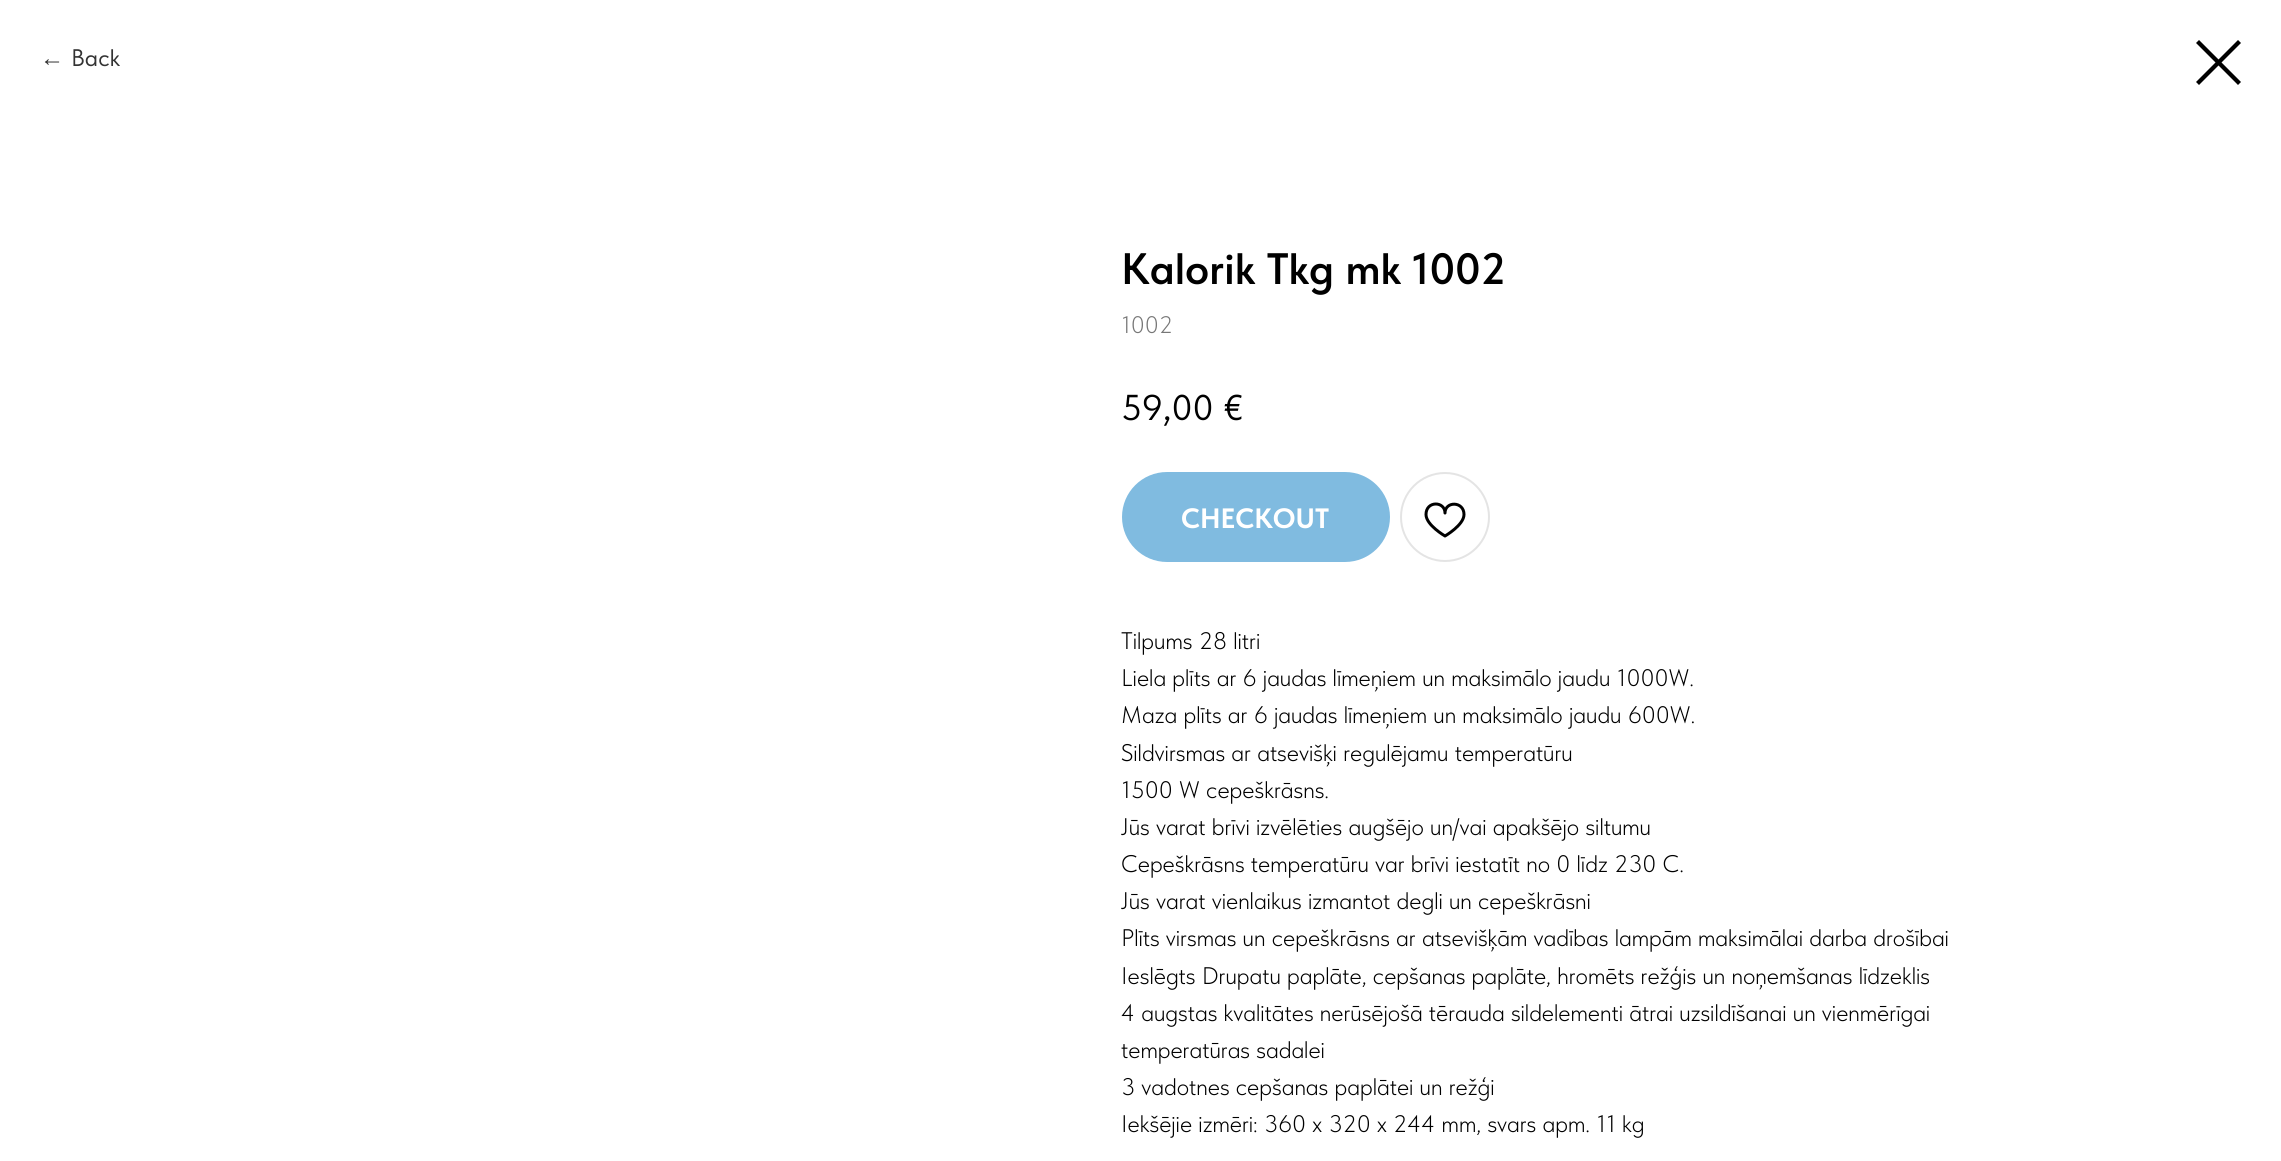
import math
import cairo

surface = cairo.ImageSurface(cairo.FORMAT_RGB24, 2281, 1161)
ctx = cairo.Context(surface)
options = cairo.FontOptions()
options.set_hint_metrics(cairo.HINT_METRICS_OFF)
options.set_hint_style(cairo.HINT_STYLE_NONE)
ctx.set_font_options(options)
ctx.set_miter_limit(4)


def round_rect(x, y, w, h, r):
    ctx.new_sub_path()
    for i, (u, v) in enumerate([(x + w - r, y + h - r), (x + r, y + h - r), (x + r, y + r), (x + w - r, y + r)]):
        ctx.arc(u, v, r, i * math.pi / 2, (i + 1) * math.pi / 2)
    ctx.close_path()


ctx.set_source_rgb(1, 1, 1)
ctx.paint()
ctx.select_font_face("Liberation Sans")
ctx.set_font_size(24)
ctx.set_source_rgb(0.2, 0.2, 0.2)
ctx.move_to(40, 66)
ctx.show_text("←")
ctx.select_font_face("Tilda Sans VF")
ctx.move_to(71, 66)
ctx.show_text("Back")
ctx.set_source_rgb(0, 0, 0)
ctx.set_fill_rule(cairo.FILL_RULE_EVEN_ODD)
ctx.new_path()
ctx.move_to(2196, 43)
ctx.line_to(2199, 40)
ctx.line_to(2241, 82)
ctx.line_to(2238, 85)
ctx.close_path()
ctx.fill()
ctx.new_path()
ctx.move_to(2238, 40)
ctx.line_to(2241, 43)
ctx.line_to(2199, 85)
ctx.line_to(2196, 82)
ctx.close_path()
ctx.fill()
ctx.select_font_face("Tilda Sans VF SemiBold")
ctx.set_font_size(44)
ctx.move_to(1121, 284)
ctx.show_text("Kalorik Tkg mk 1002")
ctx.select_font_face("Tilda Sans VF Light")
ctx.set_font_size(24)
ctx.set_source_rgb(0.467, 0.467, 0.467)
ctx.move_to(1121, 333)
ctx.show_text("1002")
ctx.select_font_face("Tilda Sans VF")
ctx.set_font_size(36)
ctx.set_source_rgb(0, 0, 0)
ctx.move_to(1121, 420)
ctx.show_text("59,00")
ctx.move_to(1224, 420)
ctx.show_text("€")
ctx.set_source_rgb(0.502, 0.733, 0.878)
round_rect(1122, 472, 268, 90, 45)
ctx.fill()
ctx.select_font_face("Tilda Sans VF", cairo.FONT_SLANT_NORMAL, cairo.FONT_WEIGHT_BOLD)
ctx.set_font_size(28)
ctx.set_source_rgb(1, 1, 1)
ctx.move_to(1181, 528)
ctx.show_text("CHECKOUT")
ctx.new_path()
ctx.arc(1445, 517, 44, 0, 2 * math.pi)
ctx.set_source_rgb(0.894, 0.894, 0.894)
ctx.stroke()
ctx.new_path()
ctx.move_to(1464, 514.5)
ctx.curve_to(1464, 525, 1445, 536, 1445, 536)
ctx.curve_to(1445, 536, 1426, 525, 1426, 514.5)
ctx.curve_to(1426, 500.5, 1445, 501, 1445, 513)
ctx.curve_to(1445, 501, 1464, 501, 1464, 514.5)
ctx.close_path()
ctx.set_source_rgb(0, 0, 0)
ctx.set_line_width(3)
ctx.set_line_join(cairo.LINE_JOIN_ROUND)
ctx.stroke()
ctx.select_font_face("Tilda Sans VF Light")
ctx.set_font_size(24)
ctx.move_to(1121, 649)
ctx.show_text("Tilpums 28 litri")
ctx.move_to(1121, 686)
ctx.show_text("Liela plīts ar 6 jaudas līmeņiem un maksimālo jaudu 1000W.")
ctx.move_to(1121, 723)
ctx.show_text("Maza plīts ar 6 jaudas līmeņiem un maksimālo jaudu 600W.")
ctx.move_to(1121, 761)
ctx.show_text("Sildvirsmas ar atsevišķi regulējamu temperatūru")
ctx.move_to(1121, 798)
ctx.show_text("1500 W cepeškrāsns.")
ctx.move_to(1121, 835)
ctx.show_text("Jūs varat brīvi izvēlēties augšējo un/vai apakšējo siltumu")
ctx.move_to(1121, 872)
ctx.show_text("Cepeškrāsns temperatūru var brīvi iestatīt no 0 līdz 230 C.")
ctx.move_to(1121, 909)
ctx.show_text("Jūs varat vienlaikus izmantot degli un cepeškrāsni")
ctx.move_to(1121, 946)
ctx.show_text("Plīts virsmas un cepeškrāsns ar atsevišķām vadības lampām maksimālai darba drošībai")
ctx.move_to(1121, 984)
ctx.show_text("Ieslēgts Drupatu paplāte, cepšanas paplāte, hromēts režģis un noņemšanas līdzeklis")
ctx.move_to(1121, 1021)
ctx.show_text("4 augstas kvalitātes nerūsējošā tērauda sildelementi ātrai uzsildīšanai un vienmērīgai")
ctx.move_to(1121, 1058)
ctx.show_text("temperatūras sadalei")
ctx.move_to(1121, 1095)
ctx.show_text("3 vadotnes cepšanas paplātei un režģi")
ctx.move_to(1121, 1132)
ctx.show_text("Iekšējie izmēri: 360 x 320 x 244 mm, svars apm. 11 kg")
surface.write_to_png("page.png")
